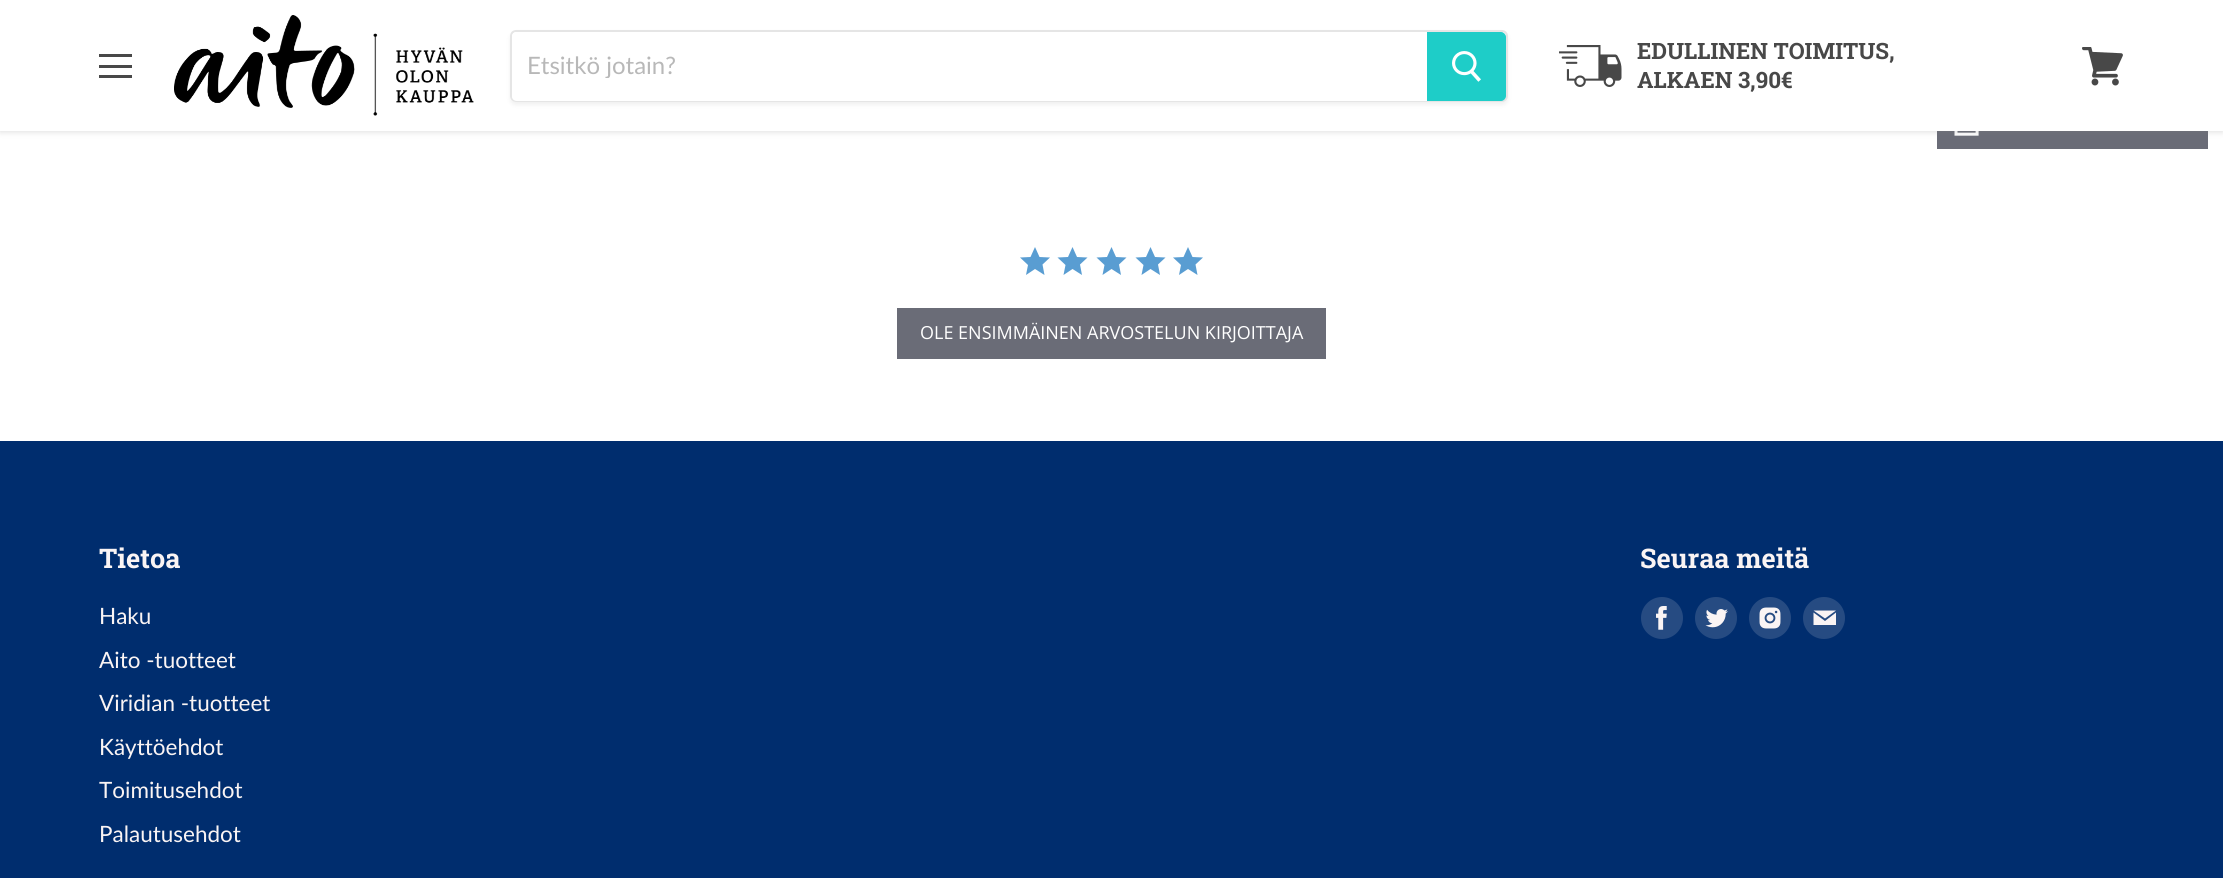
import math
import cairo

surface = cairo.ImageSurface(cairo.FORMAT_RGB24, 2223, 878)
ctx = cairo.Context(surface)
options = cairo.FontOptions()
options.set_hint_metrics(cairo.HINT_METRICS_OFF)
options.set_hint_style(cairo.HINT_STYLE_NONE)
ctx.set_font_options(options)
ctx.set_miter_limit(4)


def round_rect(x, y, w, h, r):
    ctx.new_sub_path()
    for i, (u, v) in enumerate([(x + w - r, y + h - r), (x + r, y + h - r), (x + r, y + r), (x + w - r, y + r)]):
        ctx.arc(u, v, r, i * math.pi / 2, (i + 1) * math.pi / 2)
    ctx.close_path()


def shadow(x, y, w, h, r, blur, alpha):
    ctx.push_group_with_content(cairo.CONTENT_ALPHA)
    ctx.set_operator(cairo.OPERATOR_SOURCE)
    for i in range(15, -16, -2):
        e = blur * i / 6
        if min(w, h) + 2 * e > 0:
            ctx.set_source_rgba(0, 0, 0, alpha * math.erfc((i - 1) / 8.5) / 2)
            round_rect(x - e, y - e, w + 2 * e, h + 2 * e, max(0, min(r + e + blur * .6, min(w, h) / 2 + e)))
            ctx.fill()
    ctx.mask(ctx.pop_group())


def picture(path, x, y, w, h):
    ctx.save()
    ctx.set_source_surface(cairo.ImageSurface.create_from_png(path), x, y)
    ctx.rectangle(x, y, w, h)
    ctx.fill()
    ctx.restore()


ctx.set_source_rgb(1, 1, 1)
ctx.paint()
ctx.set_source_rgb(0.416, 0.424, 0.467)
ctx.rectangle(1937, 131, 271, 18)
ctx.fill()
picture("img5.png", 1954, 131, 25, 5)
ctx.set_source_rgb(0.498, 0.498, 0.498)
shadow(0, 2, 2223, 130, 0, 3, 0.25)
ctx.set_source_rgb(1, 1, 1)
ctx.rectangle(0, 0, 2223, 131)
ctx.fill()
ctx.set_source_rgb(0.282, 0.282, 0.282)
ctx.rectangle(99, 54, 33, 3)
ctx.fill()
ctx.rectangle(99, 65, 33, 3)
ctx.fill()
ctx.rectangle(99, 75, 33, 3)
ctx.fill()
picture("img1.png", 174, 15, 300, 101)
ctx.save()
ctx.set_fill_rule(cairo.FILL_RULE_EVEN_ODD)
ctx.new_path()
ctx.move_to(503, 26)
ctx.line_to(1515, 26)
ctx.line_to(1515, 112)
ctx.line_to(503, 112)
ctx.close_path()
ctx.move_to(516, 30)
ctx.line_to(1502, 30)
ctx.curve_to(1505.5, 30, 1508, 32.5, 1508, 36)
ctx.line_to(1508, 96)
ctx.curve_to(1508, 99.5, 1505.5, 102, 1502, 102)
ctx.line_to(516, 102)
ctx.curve_to(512.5, 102, 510, 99.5, 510, 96)
ctx.line_to(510, 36)
ctx.curve_to(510, 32.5, 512.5, 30, 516, 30)
ctx.close_path()
ctx.clip()
ctx.set_source_rgb(0.498, 0.498, 0.498)
shadow(510, 33, 998, 72, 6, 2, 0.11)
ctx.restore()
round_rect(511, 31, 996, 70, 5)
ctx.set_source_rgba(0.498, 0.498, 0.498, 0.2)
ctx.stroke()
ctx.set_source_rgb(1, 1, 1)
ctx.new_path()
ctx.move_to(517, 32)
ctx.line_to(1427, 32)
ctx.line_to(1427, 101)
ctx.line_to(517, 101)
ctx.curve_to(514, 101, 512, 99, 512, 96)
ctx.line_to(512, 37)
ctx.curve_to(512, 34, 514, 32, 517, 32)
ctx.close_path()
ctx.fill()
ctx.save()
ctx.rectangle(527, 50, 885, 28)
ctx.clip()
ctx.select_font_face("Lato")
ctx.set_font_size(24)
ctx.set_source_rgb(0.722, 0.722, 0.722)
ctx.move_to(527, 74)
ctx.show_text("Etsitkö jotain?")
ctx.restore()
ctx.set_source_rgb(0.118, 0.804, 0.784)
ctx.new_path()
ctx.move_to(1428, 33)
ctx.line_to(1501, 33)
ctx.curve_to(1503, 33, 1505, 35, 1505, 37)
ctx.line_to(1505, 96)
ctx.curve_to(1505, 98, 1503, 100, 1501, 100)
ctx.line_to(1428, 100)
ctx.close_path()
ctx.fill_preserve()
ctx.stroke()
picture("img2.png", 1452, 51, 29, 31)
picture("img3.png", 1559, 45, 63, 42)
ctx.select_font_face("Roboto Slab", cairo.FONT_SLANT_NORMAL, cairo.FONT_WEIGHT_BOLD)
ctx.set_font_size(22.5)
ctx.set_source_rgb(0.282, 0.282, 0.282)
ctx.move_to(1637, 59)
ctx.show_text("EDULLINEN TOIMITUS,")
ctx.move_to(1637, 88)
ctx.show_text("ALKAEN 3,90€")
picture("img4.png", 2082, 47, 41, 39)
ctx.set_source_rgb(0.349, 0.616, 0.824)
ctx.new_path()
ctx.move_to(1044.5, 275)
ctx.line_to(1035, 269)
ctx.line_to(1026, 275)
ctx.line_to(1028, 265)
ctx.line_to(1020, 257.5)
ctx.line_to(1030.5, 257)
ctx.line_to(1035, 247)
ctx.line_to(1039.5, 257)
ctx.line_to(1050, 257.5)
ctx.line_to(1042.5, 264.5)
ctx.close_path()
ctx.fill()
ctx.new_path()
ctx.move_to(1082, 275)
ctx.line_to(1072.5, 269)
ctx.line_to(1063.5, 275)
ctx.line_to(1065.5, 265)
ctx.line_to(1057.5, 257.5)
ctx.line_to(1068, 257)
ctx.line_to(1072.5, 247)
ctx.line_to(1077, 257)
ctx.line_to(1087.5, 257.5)
ctx.line_to(1080, 264.5)
ctx.close_path()
ctx.fill()
ctx.new_path()
ctx.move_to(1121, 275)
ctx.line_to(1111.5, 269)
ctx.line_to(1102.5, 275)
ctx.line_to(1104.5, 265)
ctx.line_to(1096.5, 257.5)
ctx.line_to(1107, 257)
ctx.line_to(1111.5, 247)
ctx.line_to(1116, 257)
ctx.line_to(1126.5, 257.5)
ctx.line_to(1119, 264.5)
ctx.close_path()
ctx.fill()
ctx.new_path()
ctx.move_to(1160, 275)
ctx.line_to(1150.5, 269)
ctx.line_to(1141.5, 275)
ctx.line_to(1143.5, 265)
ctx.line_to(1135.5, 257.5)
ctx.line_to(1146, 257)
ctx.line_to(1150.5, 247)
ctx.line_to(1155, 257)
ctx.line_to(1165.5, 257.5)
ctx.line_to(1158, 264.5)
ctx.close_path()
ctx.fill()
ctx.new_path()
ctx.move_to(1197.5, 275)
ctx.line_to(1188, 269)
ctx.line_to(1179, 275)
ctx.line_to(1181, 265)
ctx.line_to(1173, 257.5)
ctx.line_to(1183.5, 257)
ctx.line_to(1188, 247)
ctx.line_to(1192.5, 257)
ctx.line_to(1203, 257.5)
ctx.line_to(1195.5, 264.5)
ctx.close_path()
ctx.fill()
ctx.set_source_rgb(0.416, 0.424, 0.467)
ctx.rectangle(897, 308, 429, 51)
ctx.fill()
ctx.select_font_face("Open Sans")
ctx.set_font_size(18)
ctx.set_source_rgb(1, 1, 1)
ctx.move_to(920, 339)
ctx.show_text("OLE ENSIMMÄINEN ARVOSTELUN KIRJOITTAJA")
ctx.set_source_rgb(0, 0.176, 0.431)
ctx.rectangle(0, 441, 2223, 437)
ctx.fill()
ctx.select_font_face("Roboto Slab", cairo.FONT_SLANT_NORMAL, cairo.FONT_WEIGHT_BOLD)
ctx.set_font_size(27)
ctx.set_source_rgb(0.98, 0.957, 0.957)
ctx.move_to(99, 568)
ctx.show_text("Tietoa")
ctx.select_font_face("Lato")
ctx.set_font_size(22.5)
ctx.move_to(99, 624)
ctx.show_text("Haku")
ctx.move_to(99, 668)
ctx.show_text("Aito -tuotteet")
ctx.move_to(99, 711)
ctx.show_text("Viridian -tuotteet")
ctx.move_to(99, 755)
ctx.show_text("Käyttöehdot")
ctx.move_to(99, 798)
ctx.show_text("Toimitusehdot")
ctx.move_to(99, 842)
ctx.show_text("Palautusehdot")
ctx.select_font_face("Roboto Slab", cairo.FONT_SLANT_NORMAL, cairo.FONT_WEIGHT_BOLD)
ctx.set_font_size(27)
ctx.move_to(1640, 568)
ctx.show_text("Seuraa meitä")
ctx.set_source_rgb(0.149, 0.294, 0.51)
ctx.new_path()
ctx.arc(1662, 618, 21, 0, 2 * math.pi)
ctx.fill()
picture("img6.png", 1656, 606, 11, 24)
ctx.arc(1716, 618, 21, 0, 2 * math.pi)
ctx.fill()
picture("img7.png", 1705, 609, 23, 19)
ctx.arc(1770, 618, 21, 0, 2 * math.pi)
ctx.fill()
picture("img8.png", 1759, 607, 22, 22)
ctx.arc(1824, 618, 21, 0, 2 * math.pi)
ctx.fill()
ctx.set_source_rgb(0.98, 0.957, 0.957)
ctx.set_fill_rule(cairo.FILL_RULE_EVEN_ODD)
ctx.new_path()
ctx.move_to(1836, 610.5)
ctx.line_to(1813.5, 610.5)
ctx.line_to(1825, 618.5)
ctx.close_path()
ctx.move_to(1825, 621)
ctx.line_to(1813.5, 612.5)
ctx.line_to(1813.5, 625)
ctx.line_to(1836, 625)
ctx.line_to(1836, 612.5)
ctx.close_path()
ctx.fill()
surface.write_to_png("page.png")
